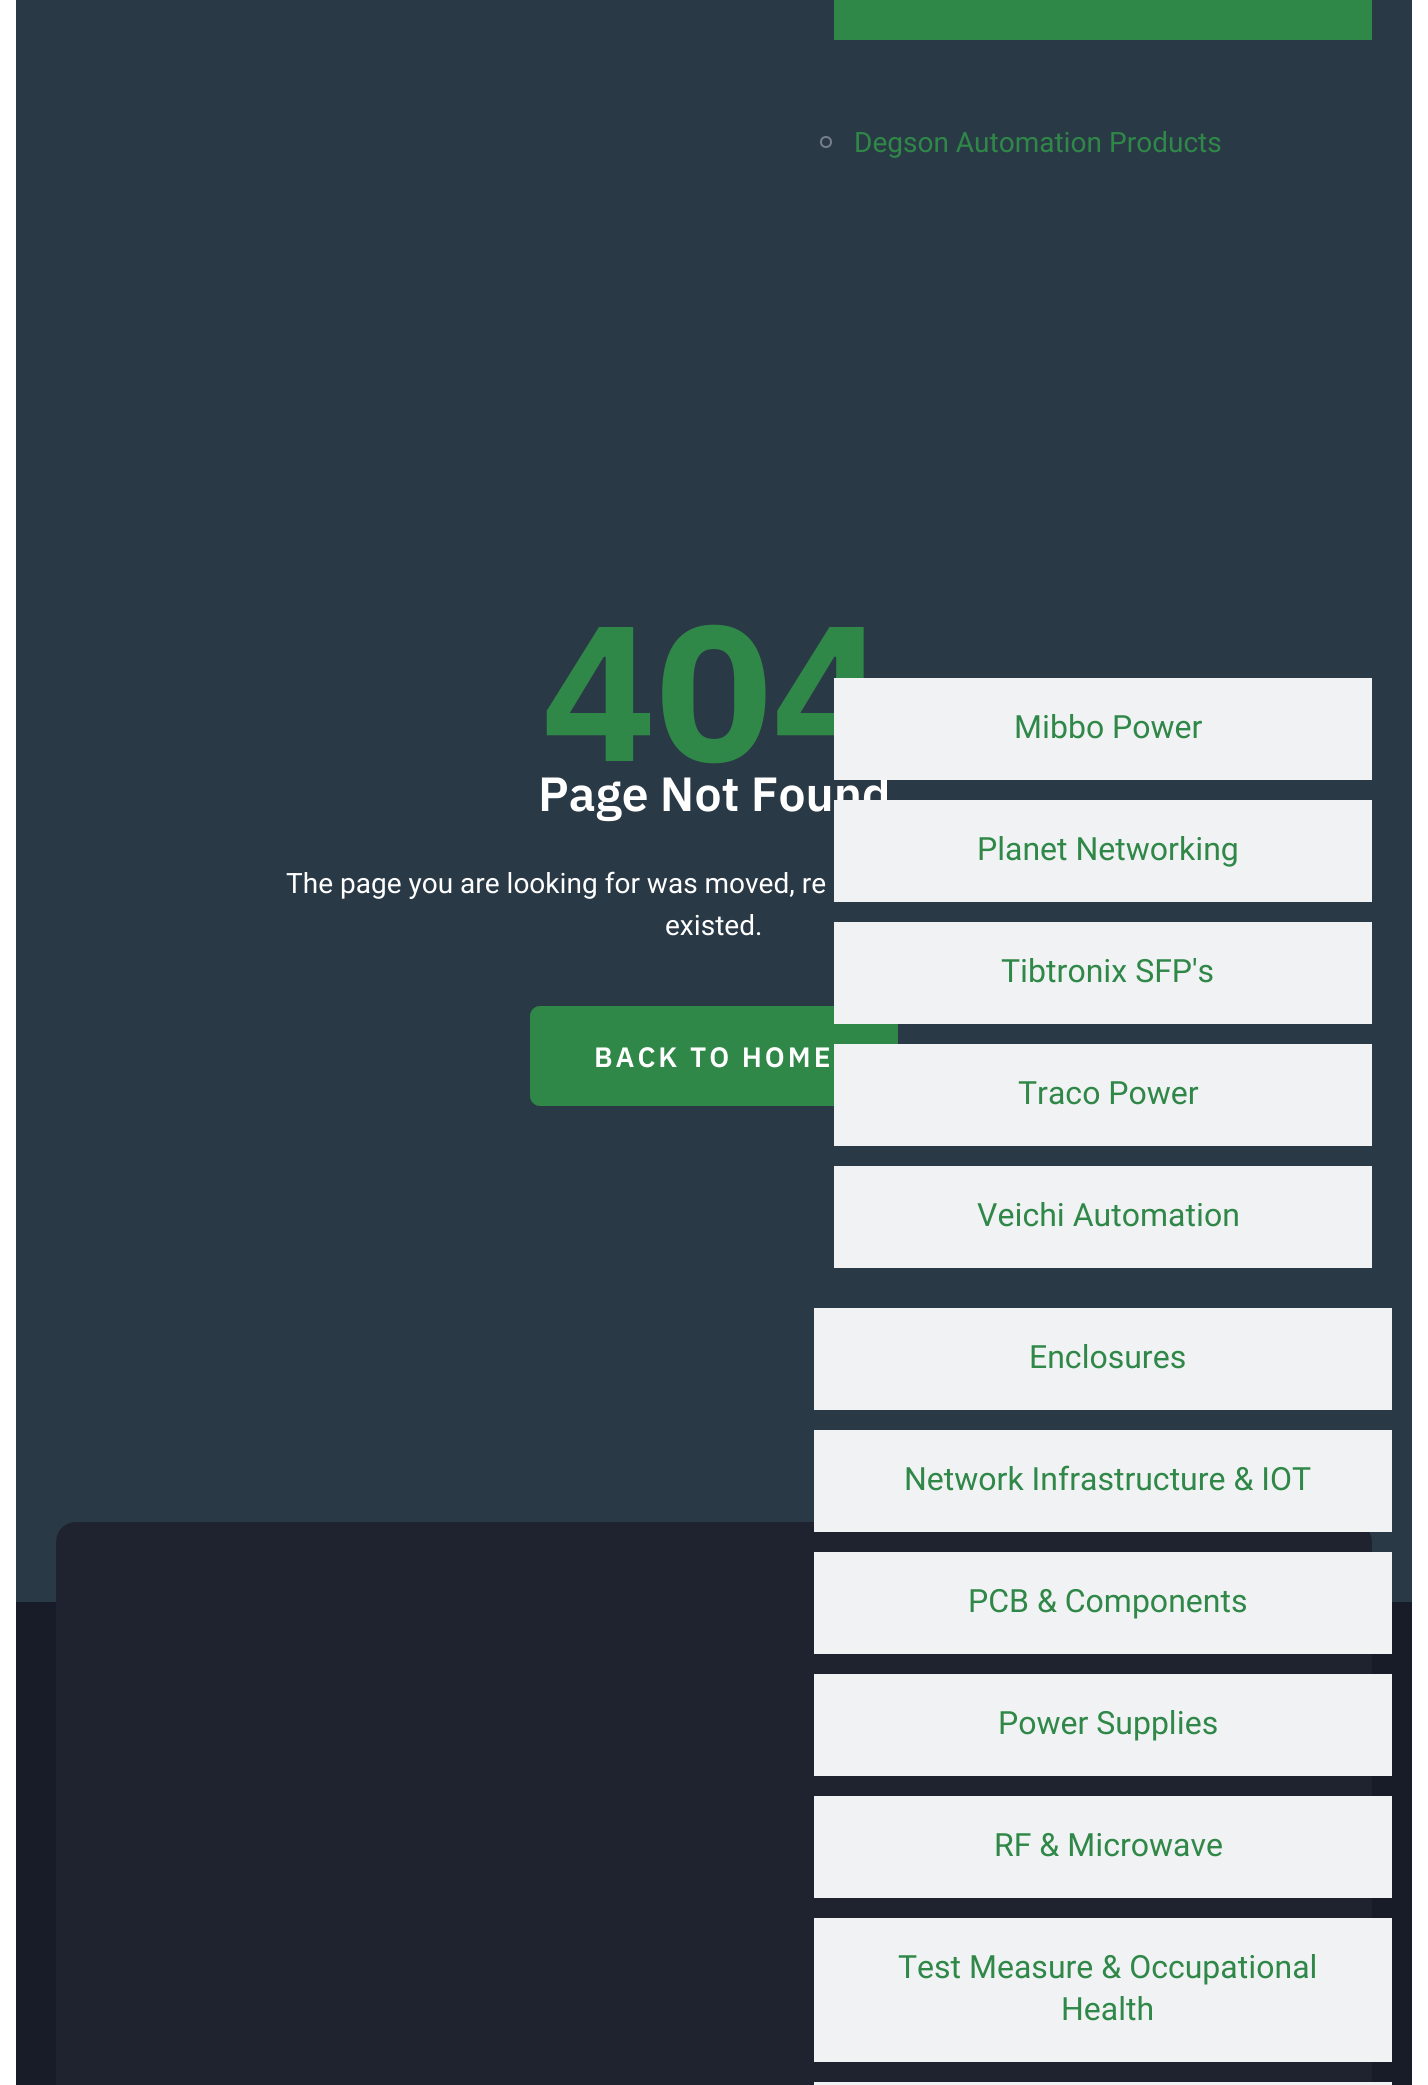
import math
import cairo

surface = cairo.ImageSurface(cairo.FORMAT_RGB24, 1428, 2085)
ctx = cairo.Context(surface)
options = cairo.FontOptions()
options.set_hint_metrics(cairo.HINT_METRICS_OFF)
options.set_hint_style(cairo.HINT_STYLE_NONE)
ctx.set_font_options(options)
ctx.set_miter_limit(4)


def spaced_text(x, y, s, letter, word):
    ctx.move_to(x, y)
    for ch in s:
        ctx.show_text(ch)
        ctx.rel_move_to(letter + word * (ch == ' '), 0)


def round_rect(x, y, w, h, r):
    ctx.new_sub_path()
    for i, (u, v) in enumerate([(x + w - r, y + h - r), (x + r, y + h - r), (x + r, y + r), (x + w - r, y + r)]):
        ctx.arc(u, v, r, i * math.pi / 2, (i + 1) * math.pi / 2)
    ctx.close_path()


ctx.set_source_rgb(1, 1, 1)
ctx.paint()
ctx.set_source_rgb(0.161, 0.224, 0.271)
ctx.rectangle(16, 0, 1396, 1602)
ctx.fill()
ctx.select_font_face("IBM Plex Sans", cairo.FONT_SLANT_NORMAL, cairo.FONT_WEIGHT_BOLD)
ctx.set_font_size(192)
ctx.set_source_rgb(0.184, 0.529, 0.282)
ctx.move_to(541, 761)
ctx.show_text("404")
ctx.select_font_face("IBM Plex Sans SemiBold")
ctx.set_font_size(48)
ctx.set_source_rgb(1, 1, 1)
ctx.move_to(538, 811)
ctx.show_text("Page Not Found")
ctx.select_font_face("Heebo")
ctx.set_font_size(28)
ctx.move_to(286, 893)
ctx.show_text("The page you are looking for was moved, re")
ctx.move_to(665, 935)
ctx.show_text("existed.")
ctx.set_source_rgb(0.184, 0.529, 0.282)
round_rect(530, 1006, 368, 100, 10)
ctx.fill()
ctx.select_font_face("IBM Plex Sans SemiBold")
ctx.set_source_rgb(1, 1, 1)
spaced_text(594, 1067, "BACK TO HOME", 3, 0)
ctx.new_path()
ctx.arc(826, 142, 5, 0, 2 * math.pi)
ctx.set_source_rgb(0.463, 0.49, 0.557)
ctx.stroke()
ctx.select_font_face("Heebo")
ctx.set_source_rgb(0.184, 0.529, 0.282)
ctx.move_to(854, 152)
ctx.show_text("Degson Automation Products")
ctx.rectangle(834, 0, 538, 40)
ctx.fill()
ctx.set_source_rgb(0.945, 0.949, 0.953)
ctx.rectangle(834, 678, 538, 102)
ctx.fill()
ctx.set_font_size(32)
ctx.set_source_rgb(0.184, 0.529, 0.282)
ctx.move_to(1014, 738)
ctx.show_text("Mibbo Power")
ctx.set_source_rgb(0.945, 0.949, 0.953)
ctx.rectangle(834, 800, 538, 102)
ctx.fill()
ctx.set_source_rgb(0.184, 0.529, 0.282)
ctx.move_to(977, 860)
ctx.show_text("Planet Networking")
ctx.set_source_rgb(0.945, 0.949, 0.953)
ctx.rectangle(834, 922, 538, 102)
ctx.fill()
ctx.set_source_rgb(0.184, 0.529, 0.282)
ctx.move_to(1001, 982)
ctx.show_text("Tibtronix SFP's")
ctx.set_source_rgb(0.945, 0.949, 0.953)
ctx.rectangle(834, 1044, 538, 102)
ctx.fill()
ctx.set_source_rgb(0.184, 0.529, 0.282)
ctx.move_to(1018, 1104)
ctx.show_text("Traco Power")
ctx.set_source_rgb(0.945, 0.949, 0.953)
ctx.rectangle(834, 1166, 538, 102)
ctx.fill()
ctx.set_source_rgb(0.184, 0.529, 0.282)
ctx.move_to(977, 1226)
ctx.show_text("Veichi Automation")
ctx.set_source_rgb(0.945, 0.949, 0.953)
ctx.rectangle(814, 1308, 578, 102)
ctx.fill()
ctx.set_source_rgb(0.184, 0.529, 0.282)
ctx.move_to(1029, 1368)
ctx.show_text("Enclosures")
ctx.set_source_rgb(0.094, 0.11, 0.157)
ctx.rectangle(16, 1602, 1396, 483)
ctx.fill()
ctx.set_source_rgb(0.122, 0.137, 0.188)
round_rect(56, 1522, 1316, 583, 20)
ctx.fill()
ctx.set_source_rgb(0.945, 0.949, 0.953)
ctx.rectangle(814, 1430, 578, 102)
ctx.fill()
ctx.set_source_rgb(0.184, 0.529, 0.282)
ctx.move_to(904, 1490)
ctx.show_text("Network Infrastructure & IOT")
ctx.set_source_rgb(0.945, 0.949, 0.953)
ctx.rectangle(814, 1552, 578, 102)
ctx.fill()
ctx.set_source_rgb(0.184, 0.529, 0.282)
ctx.move_to(968, 1612)
ctx.show_text("PCB & Components")
ctx.set_source_rgb(0.945, 0.949, 0.953)
ctx.rectangle(814, 1674, 578, 102)
ctx.fill()
ctx.set_source_rgb(0.184, 0.529, 0.282)
ctx.move_to(998, 1734)
ctx.show_text("Power Supplies")
ctx.set_source_rgb(0.945, 0.949, 0.953)
ctx.rectangle(814, 1796, 578, 102)
ctx.fill()
ctx.set_source_rgb(0.184, 0.529, 0.282)
ctx.move_to(994, 1856)
ctx.show_text("RF & Microwave")
ctx.set_source_rgb(0.945, 0.949, 0.953)
ctx.rectangle(814, 1918, 578, 144)
ctx.fill()
ctx.set_source_rgb(0.184, 0.529, 0.282)
ctx.move_to(898, 1978)
ctx.show_text("Test Measure & Occupational")
ctx.move_to(1061, 2020)
ctx.show_text("Health")
ctx.set_source_rgb(0.945, 0.949, 0.953)
ctx.rectangle(814, 2082, 578, 3)
ctx.fill()
surface.write_to_png("page.png")
